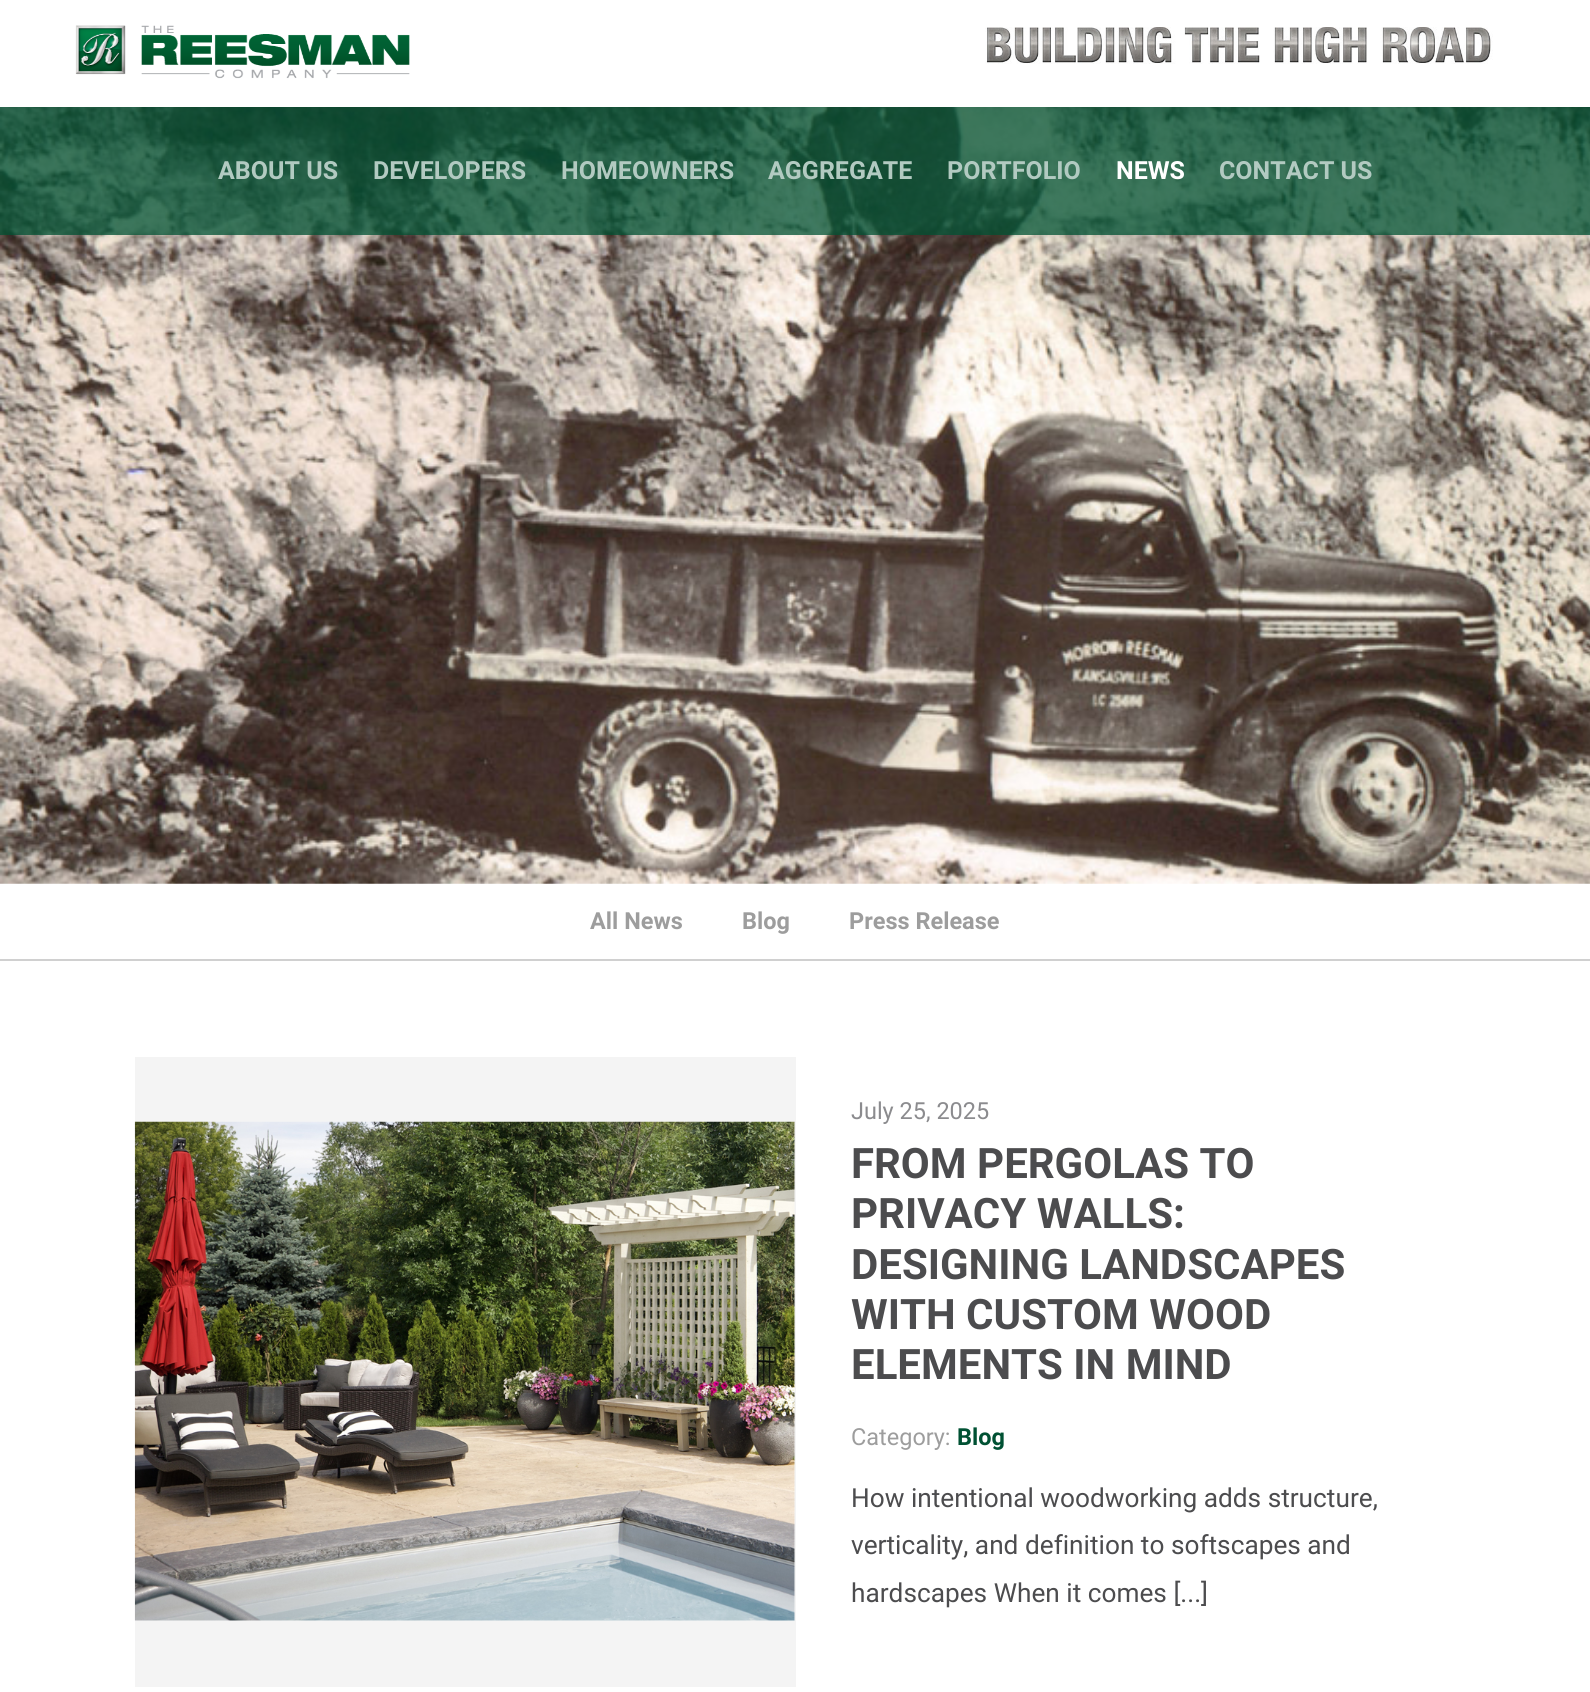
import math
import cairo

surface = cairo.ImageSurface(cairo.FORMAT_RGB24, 1590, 1692)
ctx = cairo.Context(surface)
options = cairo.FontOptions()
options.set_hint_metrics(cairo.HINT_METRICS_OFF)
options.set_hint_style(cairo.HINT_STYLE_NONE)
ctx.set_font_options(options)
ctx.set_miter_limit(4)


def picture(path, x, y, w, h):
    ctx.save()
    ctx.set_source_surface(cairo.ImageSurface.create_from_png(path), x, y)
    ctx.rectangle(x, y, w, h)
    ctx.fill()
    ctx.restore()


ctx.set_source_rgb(1, 1, 1)
ctx.paint()
picture("img1.png", 0, 107, 1590, 777)
picture("img2.png", 75, 25, 335, 54)
picture("img3.png", 985, 27, 508, 37)
ctx.set_source_rgba(0, 0.318, 0.2, 0.75)
ctx.rectangle(0, 107, 1590, 128)
ctx.fill()
ctx.select_font_face("Roboto", cairo.FONT_SLANT_NORMAL, cairo.FONT_WEIGHT_BOLD)
ctx.set_font_size(25)
ctx.set_source_rgb(0.698, 0.792, 0.757)
ctx.move_to(218, 179)
ctx.show_text("ABOUT US")
ctx.move_to(373, 179)
ctx.show_text("DEVELOPERS")
ctx.move_to(561, 179)
ctx.show_text("HOMEOWNERS")
ctx.move_to(768, 179)
ctx.show_text("AGGREGATE")
ctx.move_to(947, 179)
ctx.show_text("PORTFOLIO")
ctx.set_source_rgb(1, 1, 1)
ctx.move_to(1116, 179)
ctx.show_text("NEWS")
ctx.set_source_rgb(0.698, 0.792, 0.757)
ctx.move_to(1219, 179)
ctx.show_text("CONTACT US")
ctx.set_source_rgb(0.816, 0.816, 0.816)
ctx.rectangle(0, 959, 1590, 2)
ctx.fill()
ctx.set_font_size(23.5)
ctx.set_source_rgb(0.616, 0.616, 0.616)
ctx.move_to(590, 929)
ctx.show_text("All News")
ctx.move_to(742, 929)
ctx.show_text("Blog")
ctx.move_to(849, 929)
ctx.show_text("Press Release")
ctx.set_source_rgb(0.957, 0.957, 0.957)
ctx.rectangle(135, 1057, 661, 630)
ctx.fill()
picture("img4.png", 134, 1121, 661, 500)
ctx.select_font_face("Roboto")
ctx.set_source_rgb(0.545, 0.545, 0.557)
ctx.move_to(851, 1119)
ctx.show_text("July 25, 2025")
ctx.select_font_face("Roboto", cairo.FONT_SLANT_NORMAL, cairo.FONT_WEIGHT_BOLD)
ctx.set_font_size(42)
ctx.set_source_rgb(0.298, 0.298, 0.306)
ctx.move_to(851, 1178)
ctx.show_text("FROM PERGOLAS TO")
ctx.move_to(851, 1228)
ctx.show_text("PRIVACY WALLS:")
ctx.move_to(851, 1279)
ctx.show_text("DESIGNING LANDSCAPES")
ctx.move_to(851, 1329)
ctx.show_text("WITH CUSTOM WOOD")
ctx.move_to(851, 1379)
ctx.show_text("ELEMENTS IN MIND")
ctx.select_font_face("Roboto")
ctx.set_font_size(23.5)
ctx.set_source_rgb(0.616, 0.616, 0.616)
ctx.move_to(851, 1445)
ctx.show_text("Category:")
ctx.select_font_face("Roboto", cairo.FONT_SLANT_NORMAL, cairo.FONT_WEIGHT_BOLD)
ctx.set_source_rgb(0, 0.318, 0.2)
ctx.move_to(957, 1445)
ctx.show_text("Blog")
ctx.select_font_face("Roboto")
ctx.set_font_size(26.25)
ctx.set_source_rgb(0.298, 0.298, 0.306)
ctx.move_to(851, 1507)
ctx.show_text("How intentional woodworking adds structure,")
ctx.move_to(851, 1554)
ctx.show_text("verticality, and definition to softscapes and")
ctx.move_to(851, 1602)
ctx.show_text("hardscapes When it comes [...]")
surface.write_to_png("page.png")
